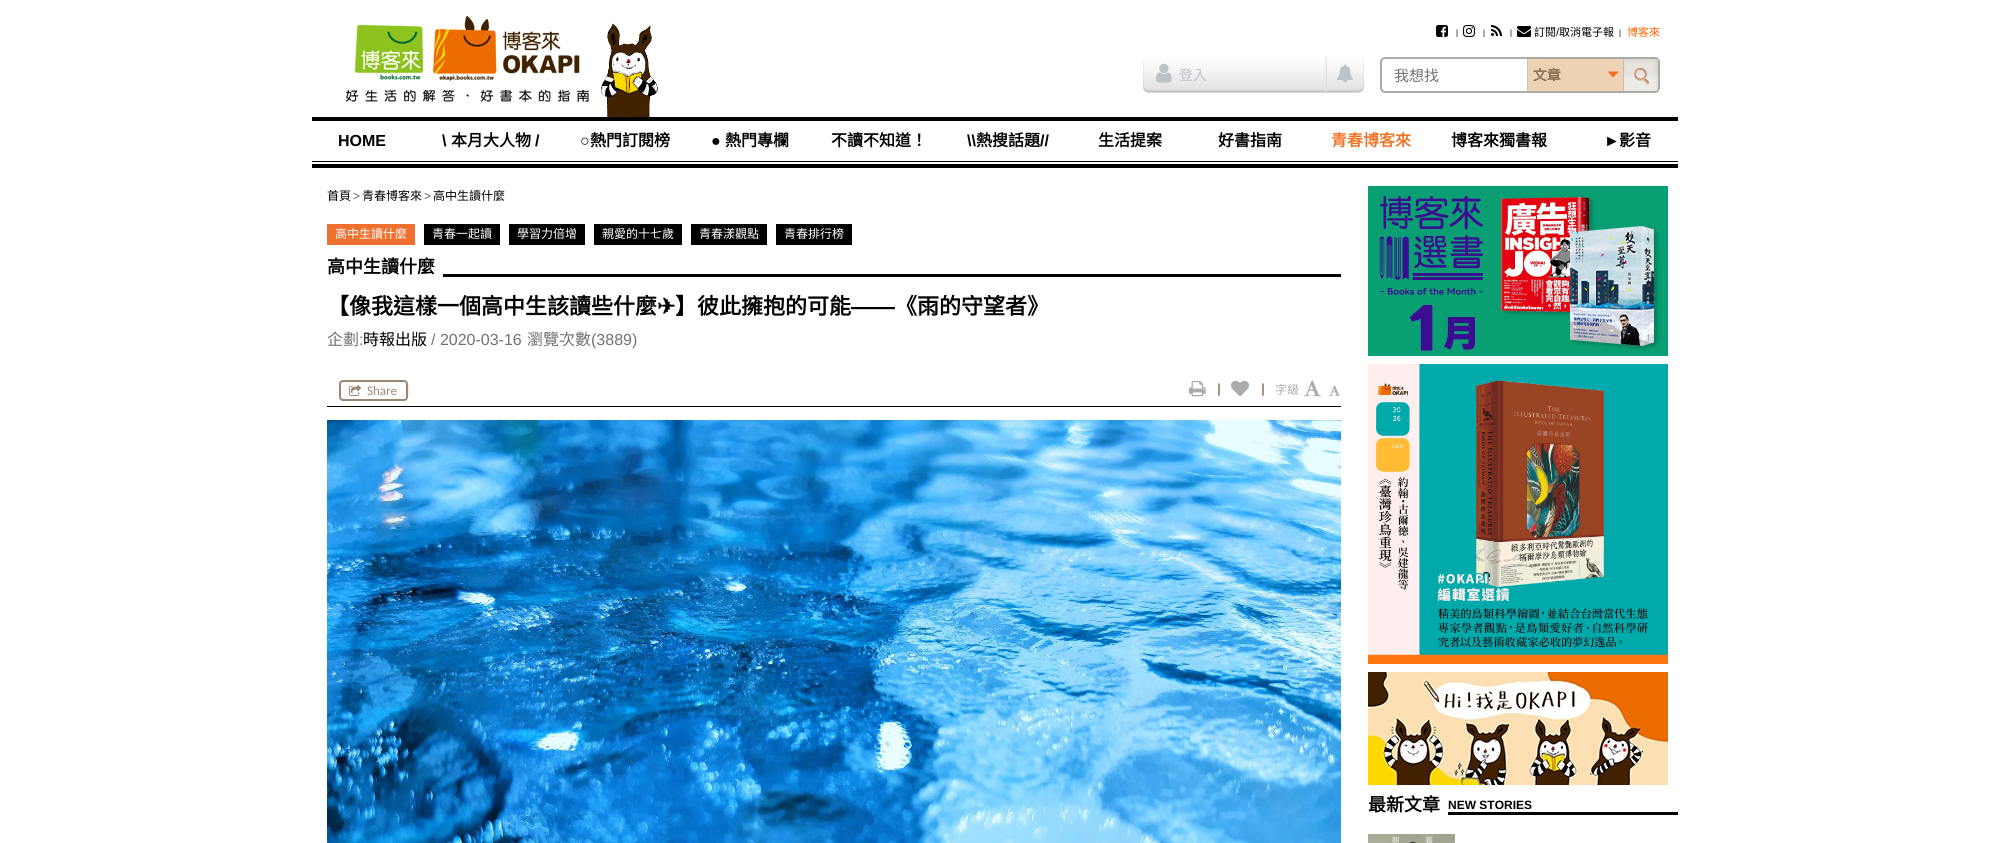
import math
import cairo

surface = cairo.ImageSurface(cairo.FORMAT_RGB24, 1989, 843)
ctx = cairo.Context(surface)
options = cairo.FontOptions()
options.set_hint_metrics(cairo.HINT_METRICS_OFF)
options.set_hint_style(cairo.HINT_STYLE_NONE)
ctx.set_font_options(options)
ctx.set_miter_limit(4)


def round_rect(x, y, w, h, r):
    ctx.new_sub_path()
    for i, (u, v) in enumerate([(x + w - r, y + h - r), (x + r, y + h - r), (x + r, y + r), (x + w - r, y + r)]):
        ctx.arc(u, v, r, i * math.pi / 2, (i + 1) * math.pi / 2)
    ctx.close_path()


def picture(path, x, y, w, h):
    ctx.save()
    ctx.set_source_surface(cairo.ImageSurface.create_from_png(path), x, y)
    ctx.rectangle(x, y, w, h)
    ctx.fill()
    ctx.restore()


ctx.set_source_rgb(1, 1, 1)
ctx.paint()
picture("img1.png", 346, 16, 243, 86)
picture("img2.png", 601, 23, 57, 94)
picture("img3.png", 1456, 29, 2, 8)
picture("img4.png", 1436, 25, 12, 12)
picture("img3.png", 1483, 29, 2, 8)
picture("img5.png", 1463, 25, 12, 12)
picture("img3.png", 1510, 29, 2, 8)
picture("img6.png", 1491, 25, 11, 11)
picture("img3.png", 1619, 29, 2, 8)
picture("img7.png", 1517, 26, 14, 11)
ctx.select_font_face("Noto Sans CJK TC")
ctx.set_font_size(11)
ctx.set_source_rgb(0, 0, 0)
ctx.move_to(1534, 36)
ctx.show_text("訂閱")
ctx.select_font_face("Liberation Sans")
ctx.move_to(1556, 36)
ctx.show_text("/")
ctx.select_font_face("Noto Sans CJK TC")
ctx.move_to(1559, 36)
ctx.show_text("取消電子報")
ctx.set_source_rgb(1, 0.4, 0)
ctx.move_to(1627, 36)
ctx.show_text("博客來")
picture("img8.png", 1143, 58, 221, 35)
picture("img9.png", 1325, 57, 2, 36)
picture("img10.png", 1156, 63, 16, 20)
ctx.set_font_size(14)
ctx.set_source_rgb(0.741, 0.765, 0.78)
ctx.move_to(1179, 80)
ctx.show_text("登入")
picture("img11.png", 1336, 64, 18, 19)
round_rect(1381, 58, 278, 34, 4)
ctx.set_source_rgb(0.671, 0.671, 0.671)
ctx.stroke()
ctx.set_font_size(15)
ctx.set_source_rgb(0.447, 0.447, 0.447)
ctx.move_to(1394, 81)
ctx.show_text("我想找")
ctx.set_source_rgb(0.933, 0.824, 0.706)
ctx.rectangle(1528, 59, 95, 32)
ctx.fill()
picture("img12.png", 1608, 71, 11, 7)
ctx.set_source_rgb(0.753, 0.753, 0.753)
ctx.set_fill_rule(cairo.FILL_RULE_EVEN_ODD)
ctx.new_path()
ctx.move_to(1528, 59)
ctx.line_to(1528, 91)
ctx.line_to(1527, 91)
ctx.line_to(1527, 59)
ctx.close_path()
ctx.move_to(1624, 59)
ctx.line_to(1624, 91)
ctx.line_to(1623, 91)
ctx.line_to(1623, 59)
ctx.close_path()
ctx.fill()
ctx.set_font_size(14)
ctx.set_source_rgb(0.231, 0.137, 0.024)
ctx.move_to(1533, 80)
ctx.show_text("文章")
ctx.set_source_rgb(0.588, 0.486, 0.369)
ctx.move_to(1533, 80)
ctx.show_text("文章")
picture("img13.png", 1624, 59, 34, 32)
ctx.set_source_rgb(0, 0, 0)
ctx.rectangle(312, 117, 1366, 4)
ctx.fill()
ctx.rectangle(312, 164, 1366, 4)
ctx.fill()
ctx.rectangle(312, 161, 1366, 1)
ctx.fill()
ctx.select_font_face("Liberation Sans", cairo.FONT_SLANT_NORMAL, cairo.FONT_WEIGHT_BOLD)
ctx.set_font_size(16)
ctx.move_to(338, 146)
ctx.show_text("HOME")
ctx.move_to(442, 146)
ctx.show_text("\\")
ctx.select_font_face("Noto Sans CJK TC", cairo.FONT_SLANT_NORMAL, cairo.FONT_WEIGHT_BOLD)
ctx.move_to(451, 146)
ctx.show_text("本月大人物")
ctx.select_font_face("Liberation Sans", cairo.FONT_SLANT_NORMAL, cairo.FONT_WEIGHT_BOLD)
ctx.move_to(535, 146)
ctx.show_text("/")
ctx.move_to(580, 146)
ctx.show_text("○")
ctx.select_font_face("Noto Sans CJK TC", cairo.FONT_SLANT_NORMAL, cairo.FONT_WEIGHT_BOLD)
ctx.move_to(590, 146)
ctx.show_text("熱門訂閱榜")
ctx.select_font_face("Liberation Sans", cairo.FONT_SLANT_NORMAL, cairo.FONT_WEIGHT_BOLD)
ctx.move_to(711, 146)
ctx.show_text("●")
ctx.select_font_face("Noto Sans CJK TC", cairo.FONT_SLANT_NORMAL, cairo.FONT_WEIGHT_BOLD)
ctx.move_to(725, 146)
ctx.show_text("熱門專欄")
ctx.move_to(831, 146)
ctx.show_text("不讀不知道！")
ctx.select_font_face("Liberation Sans", cairo.FONT_SLANT_NORMAL, cairo.FONT_WEIGHT_BOLD)
ctx.move_to(967, 146)
ctx.show_text("\\\\")
ctx.select_font_face("Noto Sans CJK TC", cairo.FONT_SLANT_NORMAL, cairo.FONT_WEIGHT_BOLD)
ctx.move_to(976, 146)
ctx.show_text("熱搜話題")
ctx.select_font_face("Liberation Sans", cairo.FONT_SLANT_NORMAL, cairo.FONT_WEIGHT_BOLD)
ctx.move_to(1040, 146)
ctx.show_text("//")
ctx.select_font_face("Noto Sans CJK TC", cairo.FONT_SLANT_NORMAL, cairo.FONT_WEIGHT_BOLD)
ctx.move_to(1098, 146)
ctx.show_text("生活提案")
ctx.move_to(1218, 146)
ctx.show_text("好書指南")
ctx.set_source_rgb(0.949, 0.439, 0.133)
ctx.move_to(1331, 146)
ctx.show_text("青春博客來")
ctx.set_source_rgb(0, 0, 0)
ctx.move_to(1451, 146)
ctx.show_text("博客來獨書報")
ctx.select_font_face("Liberation Sans", cairo.FONT_SLANT_NORMAL, cairo.FONT_WEIGHT_BOLD)
ctx.move_to(1604, 146)
ctx.show_text("►")
ctx.select_font_face("Noto Sans CJK TC", cairo.FONT_SLANT_NORMAL, cairo.FONT_WEIGHT_BOLD)
ctx.move_to(1619, 146)
ctx.show_text("影音")
ctx.select_font_face("Noto Sans CJK TC")
ctx.set_font_size(12)
ctx.move_to(327, 200)
ctx.show_text("首頁")
ctx.select_font_face("Liberation Sans")
ctx.set_source_rgb(0.349, 0.349, 0.349)
ctx.move_to(353, 200)
ctx.show_text(">")
ctx.select_font_face("Noto Sans CJK TC")
ctx.set_source_rgb(0, 0, 0)
ctx.move_to(362, 200)
ctx.show_text("青春博客來")
ctx.select_font_face("Liberation Sans")
ctx.set_source_rgb(0.349, 0.349, 0.349)
ctx.move_to(424, 200)
ctx.show_text(">")
ctx.select_font_face("Noto Sans CJK TC")
ctx.set_source_rgb(0, 0, 0)
ctx.move_to(433, 200)
ctx.show_text("高中生讀什麼")
ctx.set_source_rgb(0.941, 0.439, 0.184)
ctx.rectangle(327, 224, 88, 21)
ctx.fill()
ctx.set_source_rgb(1, 1, 1)
ctx.move_to(335, 238)
ctx.show_text("高中生讀什麼")
ctx.set_source_rgb(0, 0, 0)
ctx.rectangle(424, 224, 76, 21)
ctx.fill()
ctx.set_source_rgb(1, 1, 1)
ctx.move_to(432, 238)
ctx.show_text("青春一起讀")
ctx.set_source_rgb(0, 0, 0)
ctx.rectangle(509, 224, 76, 21)
ctx.fill()
ctx.set_source_rgb(1, 1, 1)
ctx.move_to(517, 238)
ctx.show_text("學習力倍增")
ctx.set_source_rgb(0, 0, 0)
ctx.rectangle(594, 224, 88, 21)
ctx.fill()
ctx.set_source_rgb(1, 1, 1)
ctx.move_to(602, 238)
ctx.show_text("親愛的十七歲")
ctx.set_source_rgb(0, 0, 0)
ctx.rectangle(691, 224, 76, 21)
ctx.fill()
ctx.set_source_rgb(1, 1, 1)
ctx.move_to(699, 238)
ctx.show_text("青春漾觀點")
ctx.set_source_rgb(0, 0, 0)
ctx.rectangle(776, 224, 76, 21)
ctx.fill()
ctx.set_source_rgb(1, 1, 1)
ctx.move_to(784, 238)
ctx.show_text("青春排行榜")
ctx.set_source_rgb(0, 0, 0)
ctx.rectangle(443, 274, 898, 3)
ctx.fill()
ctx.select_font_face("Noto Sans CJK TC", cairo.FONT_SLANT_NORMAL, cairo.FONT_WEIGHT_BOLD)
ctx.set_font_size(18)
ctx.move_to(327, 273)
ctx.show_text("高中生讀什麼")
ctx.set_font_size(22)
ctx.move_to(327, 314)
ctx.show_text("【像我這樣一個高中生該讀些什麼")
ctx.select_font_face("DejaVu Sans", cairo.FONT_SLANT_NORMAL, cairo.FONT_WEIGHT_BOLD)
ctx.move_to(657, 314)
ctx.show_text("✈")
ctx.select_font_face("Noto Sans CJK TC", cairo.FONT_SLANT_NORMAL, cairo.FONT_WEIGHT_BOLD)
ctx.move_to(675, 314)
ctx.show_text("】彼此擁抱的可能")
ctx.select_font_face("Liberation Sans", cairo.FONT_SLANT_NORMAL, cairo.FONT_WEIGHT_BOLD)
ctx.move_to(851, 314)
ctx.show_text("——")
ctx.select_font_face("Noto Sans CJK TC", cairo.FONT_SLANT_NORMAL, cairo.FONT_WEIGHT_BOLD)
ctx.move_to(895, 314)
ctx.show_text("《雨的守望者》")
ctx.select_font_face("Noto Sans CJK TC")
ctx.set_font_size(16)
ctx.set_source_rgb(0.447, 0.447, 0.447)
ctx.move_to(327, 345)
ctx.show_text("企劃")
ctx.select_font_face("Liberation Sans")
ctx.move_to(359, 345)
ctx.show_text(":")
ctx.select_font_face("Noto Sans CJK TC")
ctx.set_source_rgb(0, 0, 0)
ctx.move_to(363, 345)
ctx.show_text("時報出版")
ctx.select_font_face("Liberation Sans")
ctx.set_source_rgb(0.447, 0.447, 0.447)
ctx.move_to(431, 345)
ctx.show_text("/ 2020-03-16")
ctx.select_font_face("Noto Sans CJK TC")
ctx.move_to(527, 345)
ctx.show_text("瀏覽次數")
ctx.select_font_face("Liberation Sans")
ctx.move_to(591, 345)
ctx.show_text("(3889)")
ctx.set_source_rgb(0, 0, 0)
ctx.rectangle(327, 406, 1014, 1)
ctx.fill()
round_rect(340, 381, 67, 19, 3)
ctx.set_source_rgb(0.608, 0.533, 0.451)
ctx.stroke()
picture("img14.png", 349, 384, 12, 12)
ctx.select_font_face("Carlito")
ctx.set_font_size(13)
ctx.move_to(367, 395)
ctx.show_text("Share")
picture("img15.png", 408, 384, 1, 12)
picture("img16.png", 1218, 383, 2, 13)
picture("img17.png", 1189, 380, 17, 17)
picture("img16.png", 1262, 383, 2, 13)
picture("img18.png", 1231, 380, 18, 17)
ctx.select_font_face("Noto Sans CJK TC")
ctx.set_font_size(12)
ctx.set_source_rgb(0.671, 0.671, 0.671)
ctx.move_to(1275, 394)
ctx.show_text("字級")
picture("img19.png", 1304, 380, 17, 17)
picture("img20.png", 1329, 385, 12, 11)
picture("img21.png", 327, 420, 1014, 423)
picture("img22.png", 1368, 186, 300, 170)
picture("img23.png", 1368, 364, 300, 300)
picture("img24.png", 1368, 672, 300, 113)
ctx.set_source_rgb(0, 0, 0)
ctx.rectangle(1448, 812, 230, 3)
ctx.fill()
ctx.select_font_face("Noto Sans CJK TC", cairo.FONT_SLANT_NORMAL, cairo.FONT_WEIGHT_BOLD)
ctx.set_font_size(18)
ctx.move_to(1368, 811)
ctx.show_text("最新文章")
ctx.select_font_face("Liberation Sans", cairo.FONT_SLANT_NORMAL, cairo.FONT_WEIGHT_BOLD)
ctx.set_font_size(12)
ctx.move_to(1448, 809)
ctx.show_text("NEW STORIES")
picture("img25.png", 1368, 834, 87, 9)
surface.write_to_png("page.png")
